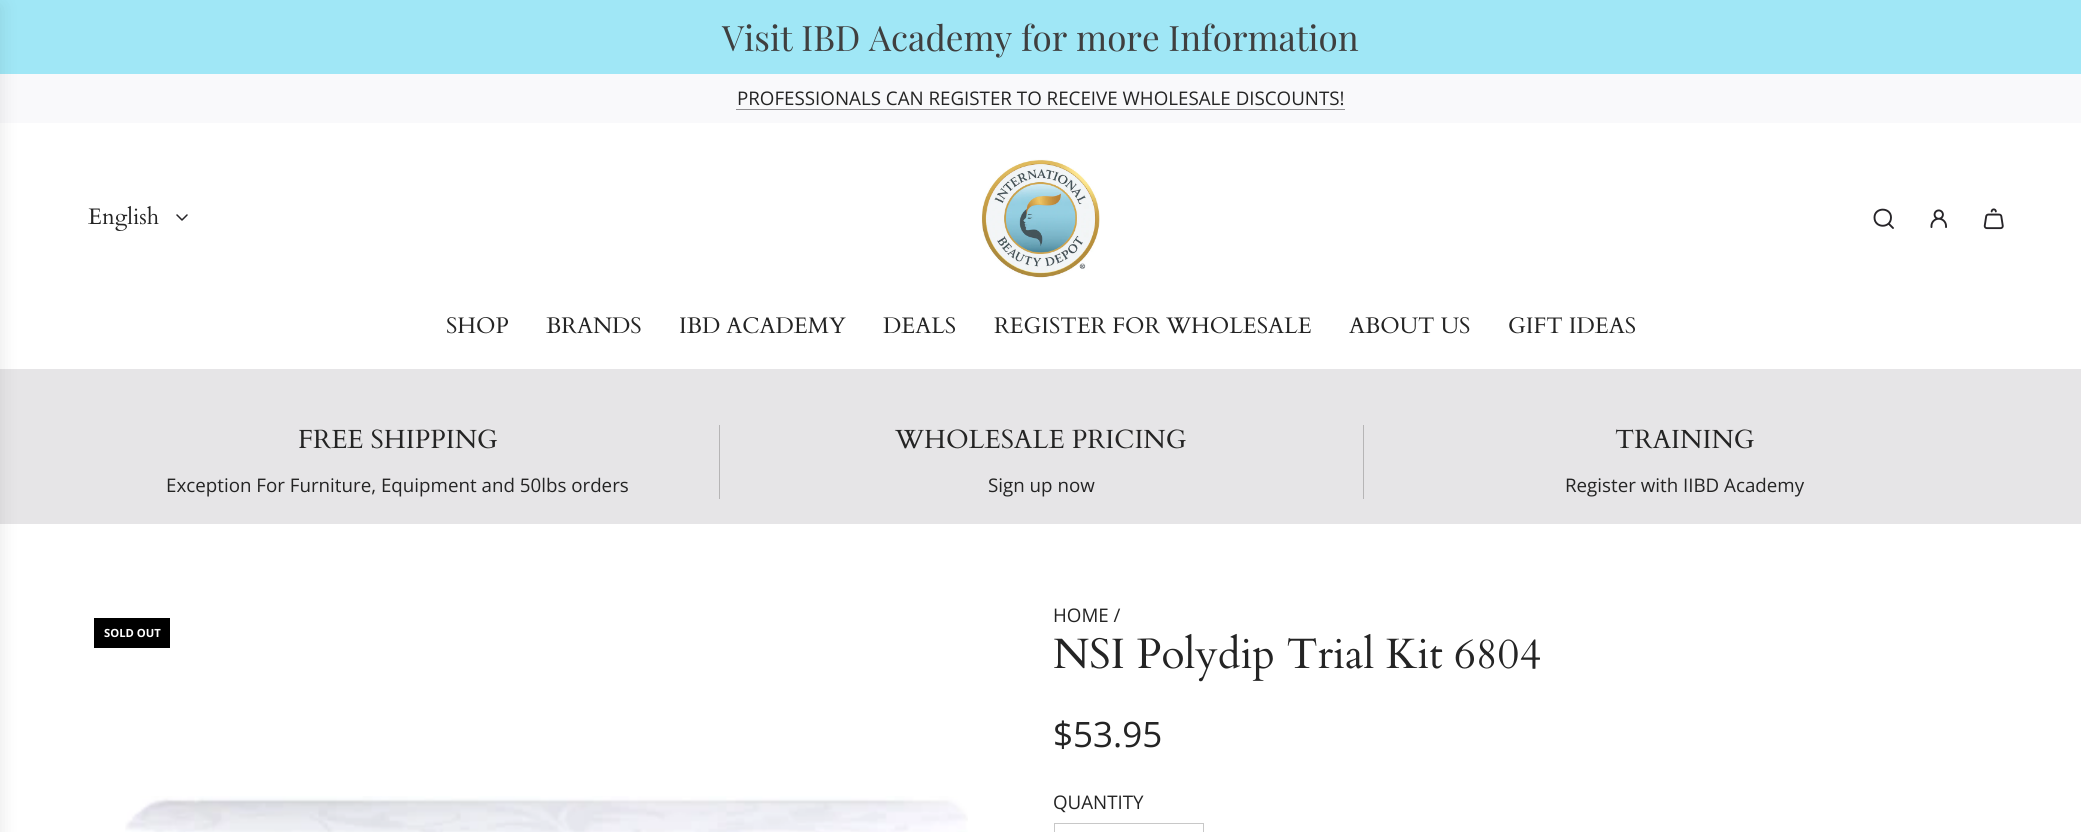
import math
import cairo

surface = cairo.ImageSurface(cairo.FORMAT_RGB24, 2081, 832)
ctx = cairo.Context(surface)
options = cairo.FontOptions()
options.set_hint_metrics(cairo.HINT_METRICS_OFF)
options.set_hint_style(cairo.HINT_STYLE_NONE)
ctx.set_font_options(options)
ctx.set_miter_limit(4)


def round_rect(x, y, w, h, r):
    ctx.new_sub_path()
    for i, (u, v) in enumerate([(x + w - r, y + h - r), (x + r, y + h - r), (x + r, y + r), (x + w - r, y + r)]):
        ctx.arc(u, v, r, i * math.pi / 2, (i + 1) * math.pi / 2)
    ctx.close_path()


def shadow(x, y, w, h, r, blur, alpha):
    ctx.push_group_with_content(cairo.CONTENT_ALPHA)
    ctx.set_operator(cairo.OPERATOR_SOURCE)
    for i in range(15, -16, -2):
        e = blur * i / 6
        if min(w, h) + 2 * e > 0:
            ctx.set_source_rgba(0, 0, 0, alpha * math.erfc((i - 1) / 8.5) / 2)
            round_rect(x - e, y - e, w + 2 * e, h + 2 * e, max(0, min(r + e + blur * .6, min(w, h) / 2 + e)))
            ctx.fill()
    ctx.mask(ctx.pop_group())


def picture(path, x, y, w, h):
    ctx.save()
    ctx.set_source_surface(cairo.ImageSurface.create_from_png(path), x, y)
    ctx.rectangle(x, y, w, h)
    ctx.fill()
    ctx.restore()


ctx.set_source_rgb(1, 1, 1)
ctx.paint()
ctx.set_source_rgb(0.627, 0.906, 0.961)
ctx.rectangle(0, 0, 2081, 74)
ctx.fill()
ctx.select_font_face("Playfair Display")
ctx.set_font_size(35)
ctx.set_source_rgb(0.247, 0.247, 0.247)
ctx.move_to(722, 51)
ctx.show_text("Visit IBD Academy for more Information")
ctx.set_source_rgb(0.976, 0.976, 0.984)
ctx.rectangle(0, 74, 2081, 49)
ctx.fill()
ctx.select_font_face("Open Sans")
ctx.set_font_size(18.75)
ctx.set_source_rgb(0.141, 0.141, 0.141)
ctx.move_to(737, 105)
ctx.show_text("PROFESSIONALS CAN REGISTER TO RECEIVE WHOLESALE DISCOUNTS!")
ctx.set_source_rgb(0.565, 0.561, 0.573)
ctx.rectangle(736, 109, 609, 1)
ctx.fill()
ctx.set_source_rgb(0.902, 0.898, 0.906)
ctx.rectangle(0, 369, 2081, 155)
ctx.fill()
ctx.set_source_rgb(0, 0, 0)
shadow(-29, 6, 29, 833, 0, 9.5, 0.1)
ctx.select_font_face("Cardo")
ctx.set_font_size(22.5)
ctx.set_source_rgb(0.141, 0.141, 0.141)
ctx.move_to(88, 224)
ctx.show_text("English")
ctx.new_path()
ctx.move_to(177, 215)
ctx.line_to(182, 220)
ctx.line_to(187, 215)
ctx.set_source_rgb(0.149, 0.141, 0.157)
ctx.set_line_width(1.5)
ctx.set_line_cap(cairo.LINE_CAP_ROUND)
ctx.set_line_join(cairo.LINE_JOIN_ROUND)
ctx.stroke()
picture("img1.png", 981, 159, 119, 119)
ctx.new_path()
ctx.move_to(1889, 224)
ctx.line_to(1893, 228)
ctx.move_to(1874.5, 217.5)
ctx.curve_to(1874.5, 228.5, 1891, 228.5, 1891, 217.5)
ctx.curve_to(1891, 207, 1874.5, 207, 1874.5, 217.5)
ctx.close_path()
ctx.set_line_width(1.9)
ctx.stroke()
picture("img2.png", 1930, 209, 17, 19)
picture("img3.png", 1983, 208, 21, 22)
ctx.set_source_rgb(0.141, 0.141, 0.141)
ctx.move_to(446, 333)
ctx.show_text("SHOP")
ctx.move_to(546, 333)
ctx.show_text("BRANDS")
ctx.move_to(679, 333)
ctx.show_text("IBD ACADEMY")
ctx.move_to(883, 333)
ctx.show_text("DEALS")
ctx.move_to(994, 333)
ctx.show_text("REGISTER FOR WHOLESALE")
ctx.move_to(1349, 333)
ctx.show_text("ABOUT US")
ctx.move_to(1508, 333)
ctx.show_text("GIFT IDEAS")
ctx.set_font_size(26.25)
ctx.move_to(298, 448)
ctx.show_text("FREE SHIPPING")
ctx.select_font_face("Open Sans")
ctx.set_font_size(18.75)
ctx.move_to(166, 492)
ctx.show_text("Exception For Furniture, Equipment and 50lbs orders")
ctx.set_source_rgb(0.714, 0.71, 0.714)
ctx.rectangle(719, 425, 1, 74)
ctx.fill()
ctx.select_font_face("Cardo")
ctx.set_font_size(26.25)
ctx.set_source_rgb(0.141, 0.141, 0.141)
ctx.move_to(895, 448)
ctx.show_text("WHOLESALE PRICING")
ctx.select_font_face("Open Sans")
ctx.set_font_size(18.75)
ctx.move_to(988, 492)
ctx.show_text("Sign up now")
ctx.set_source_rgb(0.714, 0.71, 0.714)
ctx.rectangle(1363, 425, 1, 74)
ctx.fill()
ctx.select_font_face("Cardo")
ctx.set_font_size(26.25)
ctx.set_source_rgb(0.141, 0.141, 0.141)
ctx.move_to(1615, 448)
ctx.show_text("TRAINING")
ctx.select_font_face("Open Sans")
ctx.set_font_size(18.75)
ctx.move_to(1565, 492)
ctx.show_text("Register with IIBD Academy")
ctx.set_source_rgb(0, 0, 0)
ctx.rectangle(94, 618, 76, 30)
ctx.fill()
ctx.select_font_face("Open Sans", cairo.FONT_SLANT_NORMAL, cairo.FONT_WEIGHT_BOLD)
ctx.set_font_size(11.25)
ctx.set_source_rgb(1, 1, 1)
ctx.move_to(104, 637)
ctx.show_text("SOLD OUT")
picture("img4.png", 125, 796, 843, 36)
ctx.select_font_face("Open Sans")
ctx.set_font_size(18.75)
ctx.set_source_rgb(0.141, 0.141, 0.141)
ctx.move_to(1053, 622)
ctx.show_text("HOME /")
ctx.select_font_face("Cardo")
ctx.set_font_size(42.5)
ctx.move_to(1053, 668)
ctx.show_text("NSI Polydip Trial Kit 6804")
ctx.select_font_face("Open Sans")
ctx.set_font_size(35)
ctx.move_to(1053, 747)
ctx.show_text("$53.95")
ctx.set_font_size(18.75)
ctx.move_to(1053, 809)
ctx.show_text("QUANTITY")
ctx.rectangle(1054.5, 823.5, 149, 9)
ctx.set_source_rgb(0.784, 0.784, 0.784)
ctx.set_line_width(1)
ctx.set_line_cap(cairo.LINE_CAP_BUTT)
ctx.set_line_join(cairo.LINE_JOIN_MITER)
ctx.stroke()
surface.write_to_png("page.png")
